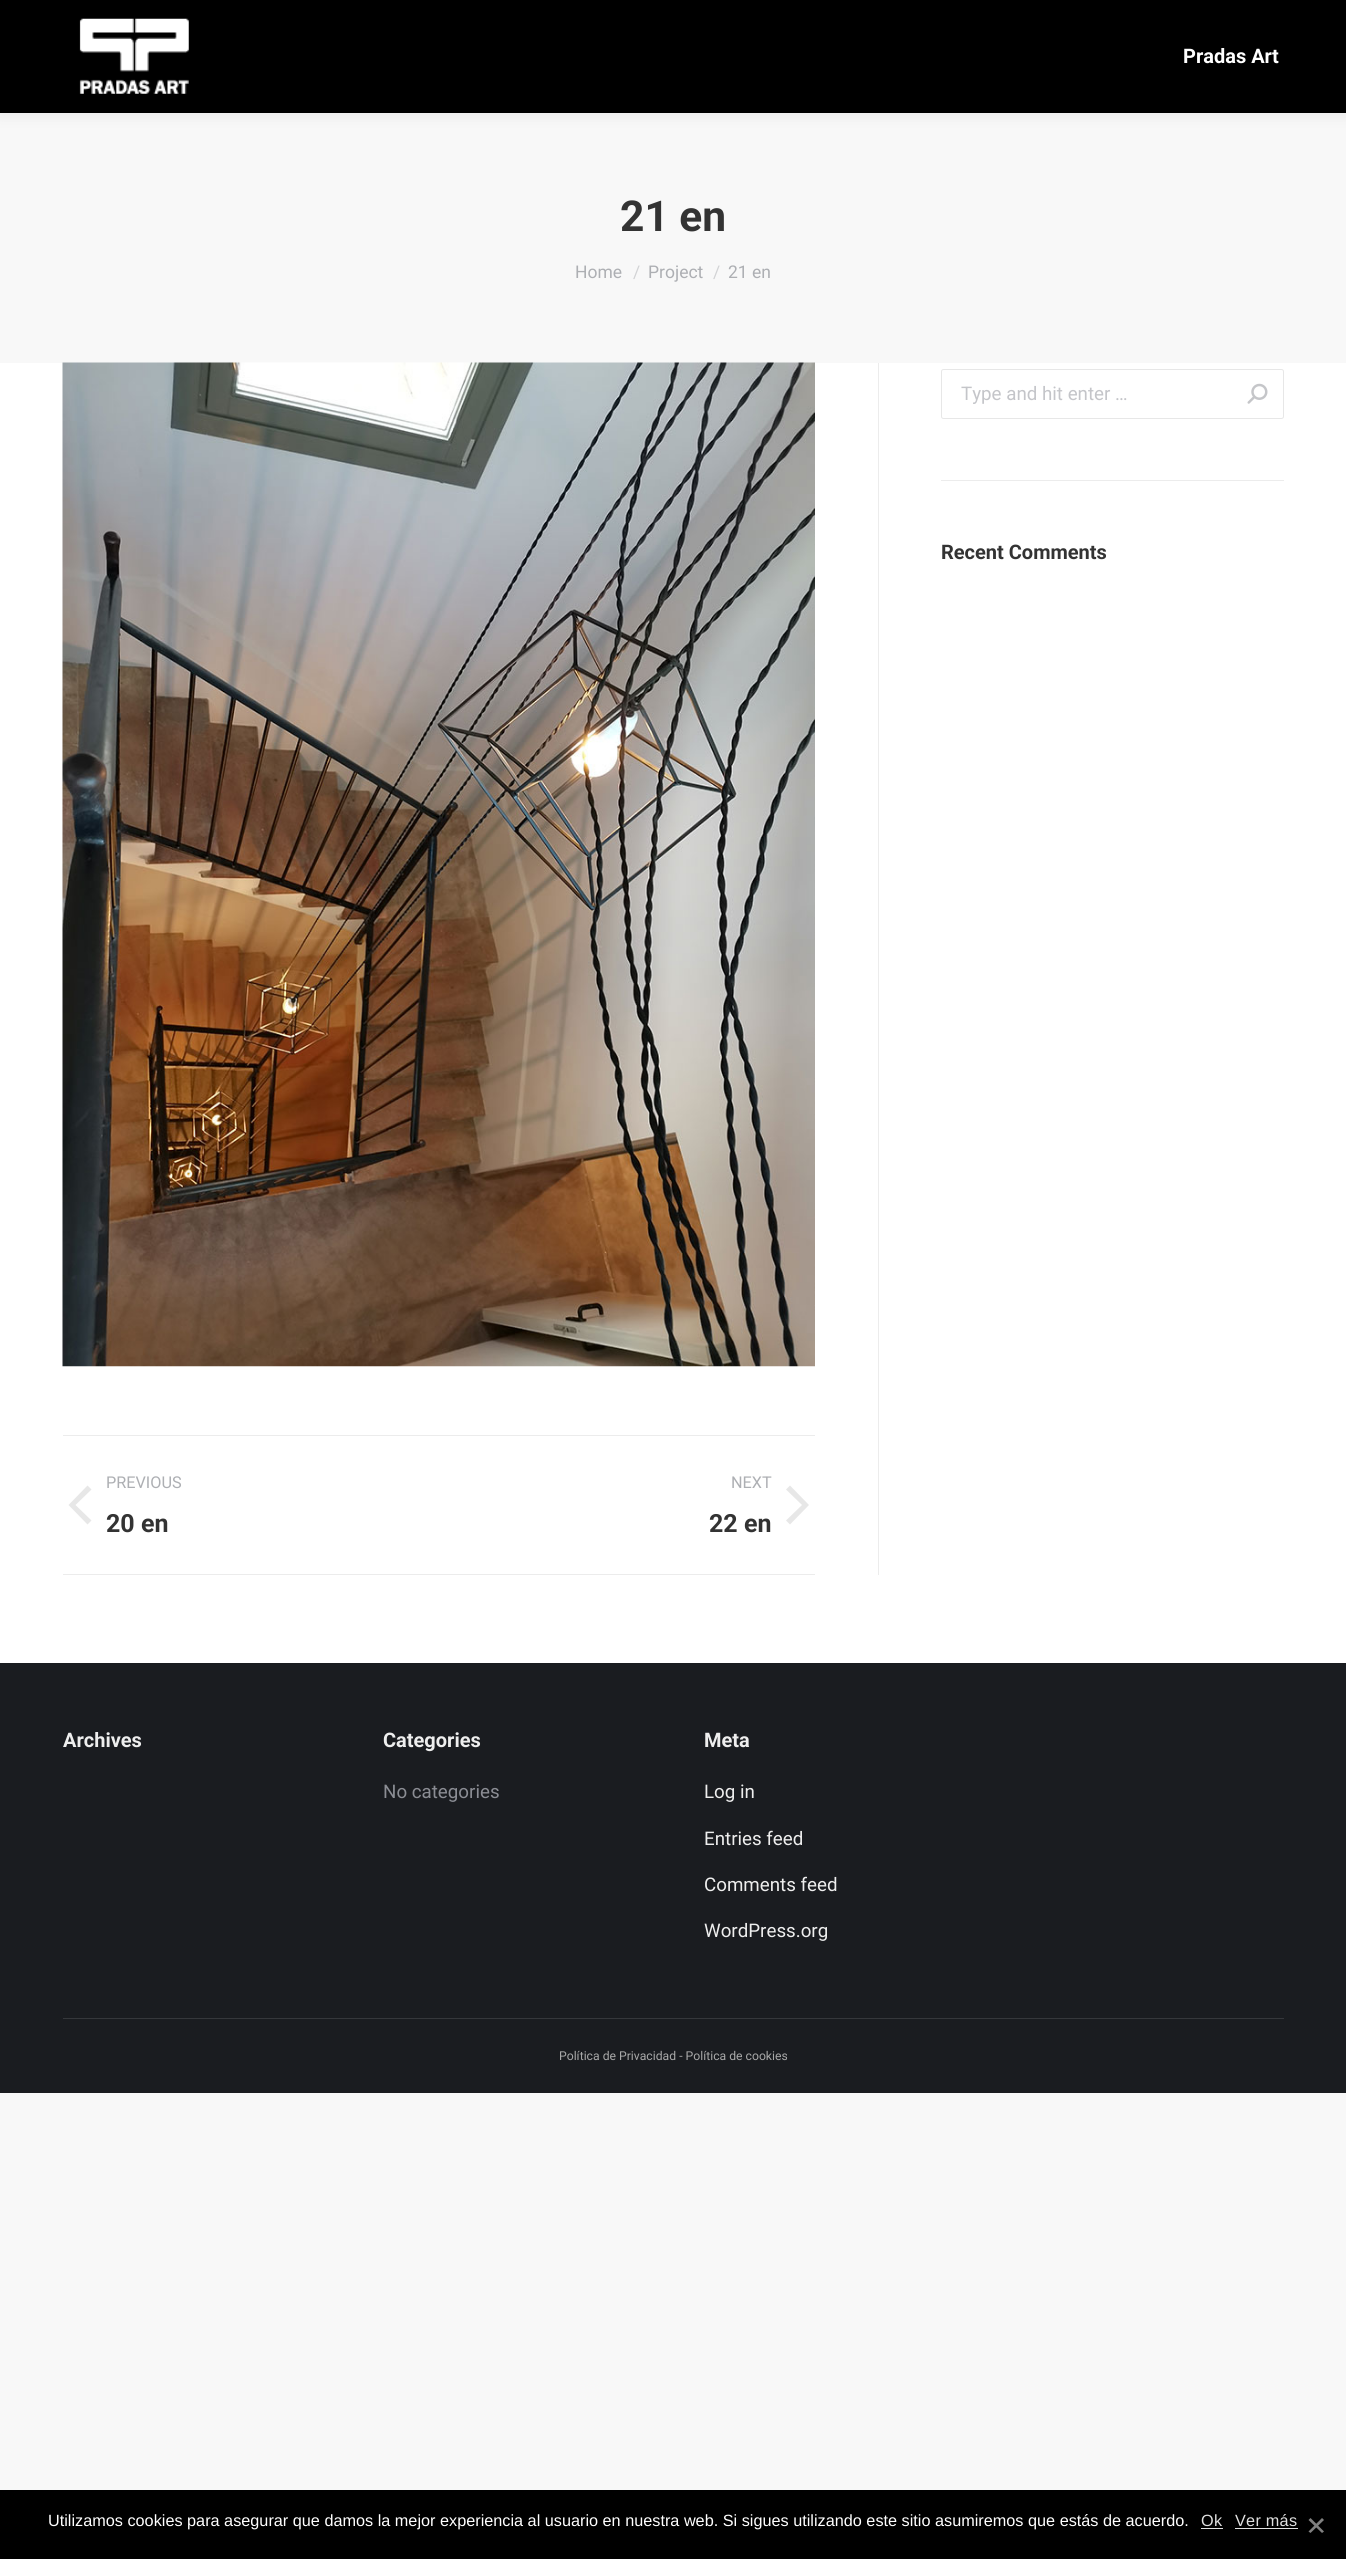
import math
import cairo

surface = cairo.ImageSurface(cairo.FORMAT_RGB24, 1346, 2559)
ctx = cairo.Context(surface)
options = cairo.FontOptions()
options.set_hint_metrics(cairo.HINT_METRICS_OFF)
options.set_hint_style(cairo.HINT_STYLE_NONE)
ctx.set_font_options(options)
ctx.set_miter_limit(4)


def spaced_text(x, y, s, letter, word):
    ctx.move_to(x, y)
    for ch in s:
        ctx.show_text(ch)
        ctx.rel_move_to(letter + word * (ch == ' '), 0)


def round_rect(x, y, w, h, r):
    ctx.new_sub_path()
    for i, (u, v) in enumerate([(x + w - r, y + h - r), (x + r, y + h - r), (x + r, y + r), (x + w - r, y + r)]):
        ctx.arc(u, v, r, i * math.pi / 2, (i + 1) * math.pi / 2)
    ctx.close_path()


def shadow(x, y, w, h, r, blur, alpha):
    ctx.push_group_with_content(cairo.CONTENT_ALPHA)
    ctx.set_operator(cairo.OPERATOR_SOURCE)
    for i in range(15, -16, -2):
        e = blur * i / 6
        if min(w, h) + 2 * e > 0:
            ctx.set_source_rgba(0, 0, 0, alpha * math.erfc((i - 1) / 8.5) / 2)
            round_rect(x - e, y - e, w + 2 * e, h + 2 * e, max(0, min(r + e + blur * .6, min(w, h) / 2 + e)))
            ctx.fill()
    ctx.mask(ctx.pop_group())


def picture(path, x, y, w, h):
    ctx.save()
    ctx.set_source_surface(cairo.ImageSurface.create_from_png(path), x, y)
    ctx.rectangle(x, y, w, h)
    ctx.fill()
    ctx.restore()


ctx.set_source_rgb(0.969, 0.969, 0.969)
ctx.paint()
ctx.set_source_rgb(1, 1, 1)
ctx.rectangle(0, 363, 1346, 1300)
ctx.fill()
ctx.set_source_rgb(0, 0, 0)
shadow(-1, -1, 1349, 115, 0, 9.5, 0.07)
ctx.set_source_rgb(0, 0, 0)
ctx.rectangle(0, 0, 1346, 113)
ctx.fill()
picture("img1.png", 79, 18, 110, 76)
ctx.select_font_face("Roboto", cairo.FONT_SLANT_NORMAL, cairo.FONT_WEIGHT_BOLD)
ctx.set_font_size(20)
ctx.set_source_rgb(1, 1, 1)
ctx.move_to(1183, 63)
ctx.show_text("Pradas Art")
ctx.set_font_size(42.5)
ctx.set_source_rgb(0.2, 0.2, 0.2)
ctx.move_to(620, 231)
ctx.show_text("21 en")
ctx.select_font_face("Roboto")
ctx.set_font_size(17.5)
ctx.set_source_rgb(0.678, 0.686, 0.702)
ctx.move_to(575, 278)
ctx.show_text("Home")
ctx.set_source_rgb(0.824, 0.827, 0.835)
ctx.move_to(633, 278)
ctx.show_text("/")
ctx.set_source_rgb(0.678, 0.686, 0.702)
ctx.move_to(648, 278)
ctx.show_text("Project")
ctx.set_source_rgb(0.824, 0.827, 0.835)
ctx.move_to(713, 278)
ctx.show_text("/")
ctx.set_source_rgb(0.678, 0.686, 0.702)
ctx.move_to(728, 278)
ctx.show_text("21 en")
ctx.set_source_rgb(0.922, 0.922, 0.922)
ctx.rectangle(878, 363, 1, 1212)
ctx.fill()
round_rect(941.5, 369.5, 342, 49, 2)
ctx.set_source_rgb(0.906, 0.906, 0.906)
ctx.set_line_width(1)
ctx.stroke()
ctx.set_font_size(18.75)
ctx.set_source_rgb(0.769, 0.773, 0.788)
ctx.move_to(961, 400)
ctx.show_text("Type and hit enter …")
picture("img2.png", 1247, 383, 21, 21)
ctx.set_source_rgb(0.922, 0.922, 0.922)
ctx.rectangle(941, 480, 343, 1)
ctx.fill()
ctx.select_font_face("Roboto", cairo.FONT_SLANT_NORMAL, cairo.FONT_WEIGHT_BOLD)
ctx.set_font_size(20)
ctx.set_source_rgb(0.2, 0.2, 0.2)
ctx.move_to(941, 559)
ctx.show_text("Recent Comments")
picture("img3.png", 62, 362, 753, 1005)
ctx.set_source_rgb(0.922, 0.922, 0.922)
ctx.rectangle(63, 1435, 752, 1)
ctx.fill()
ctx.rectangle(63, 1574, 752, 1)
ctx.fill()
ctx.select_font_face("Roboto")
ctx.set_font_size(16.25)
ctx.set_source_rgb(0.678, 0.686, 0.702)
ctx.move_to(106, 1488)
ctx.show_text("PREVIOUS")
ctx.set_source_rgb(0.906, 0.906, 0.906)
ctx.new_path()
ctx.move_to(75.5, 1505)
ctx.line_to(91.5, 1489.5)
ctx.line_to(87.5, 1485.5)
ctx.line_to(68.5, 1505)
ctx.line_to(87.5, 1524.5)
ctx.line_to(91.5, 1520.5)
ctx.close_path()
ctx.fill()
ctx.select_font_face("Roboto", cairo.FONT_SLANT_NORMAL, cairo.FONT_WEIGHT_BOLD)
ctx.set_font_size(25)
ctx.set_source_rgb(0.2, 0.2, 0.2)
ctx.move_to(106, 1532)
ctx.show_text("20 en")
ctx.select_font_face("Roboto")
ctx.set_font_size(16.25)
ctx.set_source_rgb(0.678, 0.686, 0.702)
ctx.move_to(731, 1488)
ctx.show_text("NEXT")
ctx.select_font_face("Roboto", cairo.FONT_SLANT_NORMAL, cairo.FONT_WEIGHT_BOLD)
ctx.set_font_size(25)
ctx.set_source_rgb(0.2, 0.2, 0.2)
ctx.move_to(709, 1532)
ctx.show_text("22 en")
ctx.set_source_rgb(0.906, 0.906, 0.906)
ctx.new_path()
ctx.move_to(802, 1505)
ctx.line_to(786, 1489.5)
ctx.line_to(790, 1485.5)
ctx.line_to(809, 1505)
ctx.line_to(790, 1524.5)
ctx.line_to(786, 1520.5)
ctx.close_path()
ctx.fill()
ctx.set_source_rgb(0.102, 0.11, 0.125)
ctx.rectangle(0, 1663, 1346, 430)
ctx.fill()
ctx.set_font_size(20)
ctx.set_source_rgb(0.933, 0.933, 0.933)
ctx.move_to(63, 1747)
ctx.show_text("Archives")
ctx.move_to(383, 1747)
ctx.show_text("Categories")
ctx.select_font_face("Roboto")
ctx.set_font_size(18.75)
ctx.set_source_rgb(0.545, 0.553, 0.58)
ctx.move_to(383, 1798)
ctx.show_text("No categories")
ctx.select_font_face("Roboto", cairo.FONT_SLANT_NORMAL, cairo.FONT_WEIGHT_BOLD)
ctx.set_font_size(20)
ctx.set_source_rgb(0.933, 0.933, 0.933)
ctx.move_to(704, 1747)
ctx.show_text("Meta")
ctx.select_font_face("Roboto")
ctx.set_font_size(18.75)
ctx.move_to(704, 1798)
ctx.show_text("Log in")
ctx.move_to(704, 1845)
ctx.show_text("Entries feed")
ctx.move_to(704, 1891)
ctx.show_text("Comments feed")
ctx.move_to(704, 1937)
ctx.show_text("WordPress.org")
ctx.set_source_rgb(0.208, 0.216, 0.231)
ctx.rectangle(63, 2018, 1221, 1)
ctx.fill()
ctx.set_font_size(12.2)
ctx.set_source_rgb(0.659, 0.659, 0.659)
ctx.move_to(559, 2060)
ctx.show_text("Política de Privacidad - Política de cookies")
ctx.set_source_rgb(0, 0, 0)
ctx.rectangle(0, 2490, 1346, 69)
ctx.fill()
ctx.select_font_face("Liberation Sans")
ctx.set_font_size(16.25)
ctx.set_source_rgb(1, 1, 1)
ctx.move_to(48, 2526)
ctx.show_text("Utilizamos cookies para asegurar que damos la mejor experiencia al usuario en nuestra web. Si sigues utilizando este sitio asumiremos que estás de acuerdo.")
ctx.set_source_rgb(0.878, 0.878, 0.878)
spaced_text(1201, 2526, "Ok", 0.25, 0)
ctx.rectangle(1201, 2528, 22, 1)
ctx.fill()
spaced_text(1235, 2526, "Ver más", 0.25, 0)
ctx.rectangle(1235, 2528, 63, 1)
ctx.fill()
ctx.set_source_rgb(0.502, 0.502, 0.502)
ctx.new_path()
ctx.move_to(1322, 2518)
ctx.line_to(1324, 2520)
ctx.line_to(1310.5, 2533)
ctx.line_to(1308.5, 2531.5)
ctx.close_path()
ctx.fill()
ctx.new_path()
ctx.move_to(1308.5, 2520)
ctx.line_to(1310.5, 2518)
ctx.line_to(1324, 2531.5)
ctx.line_to(1322, 2533)
ctx.close_path()
ctx.fill()
surface.write_to_png("page.png")
